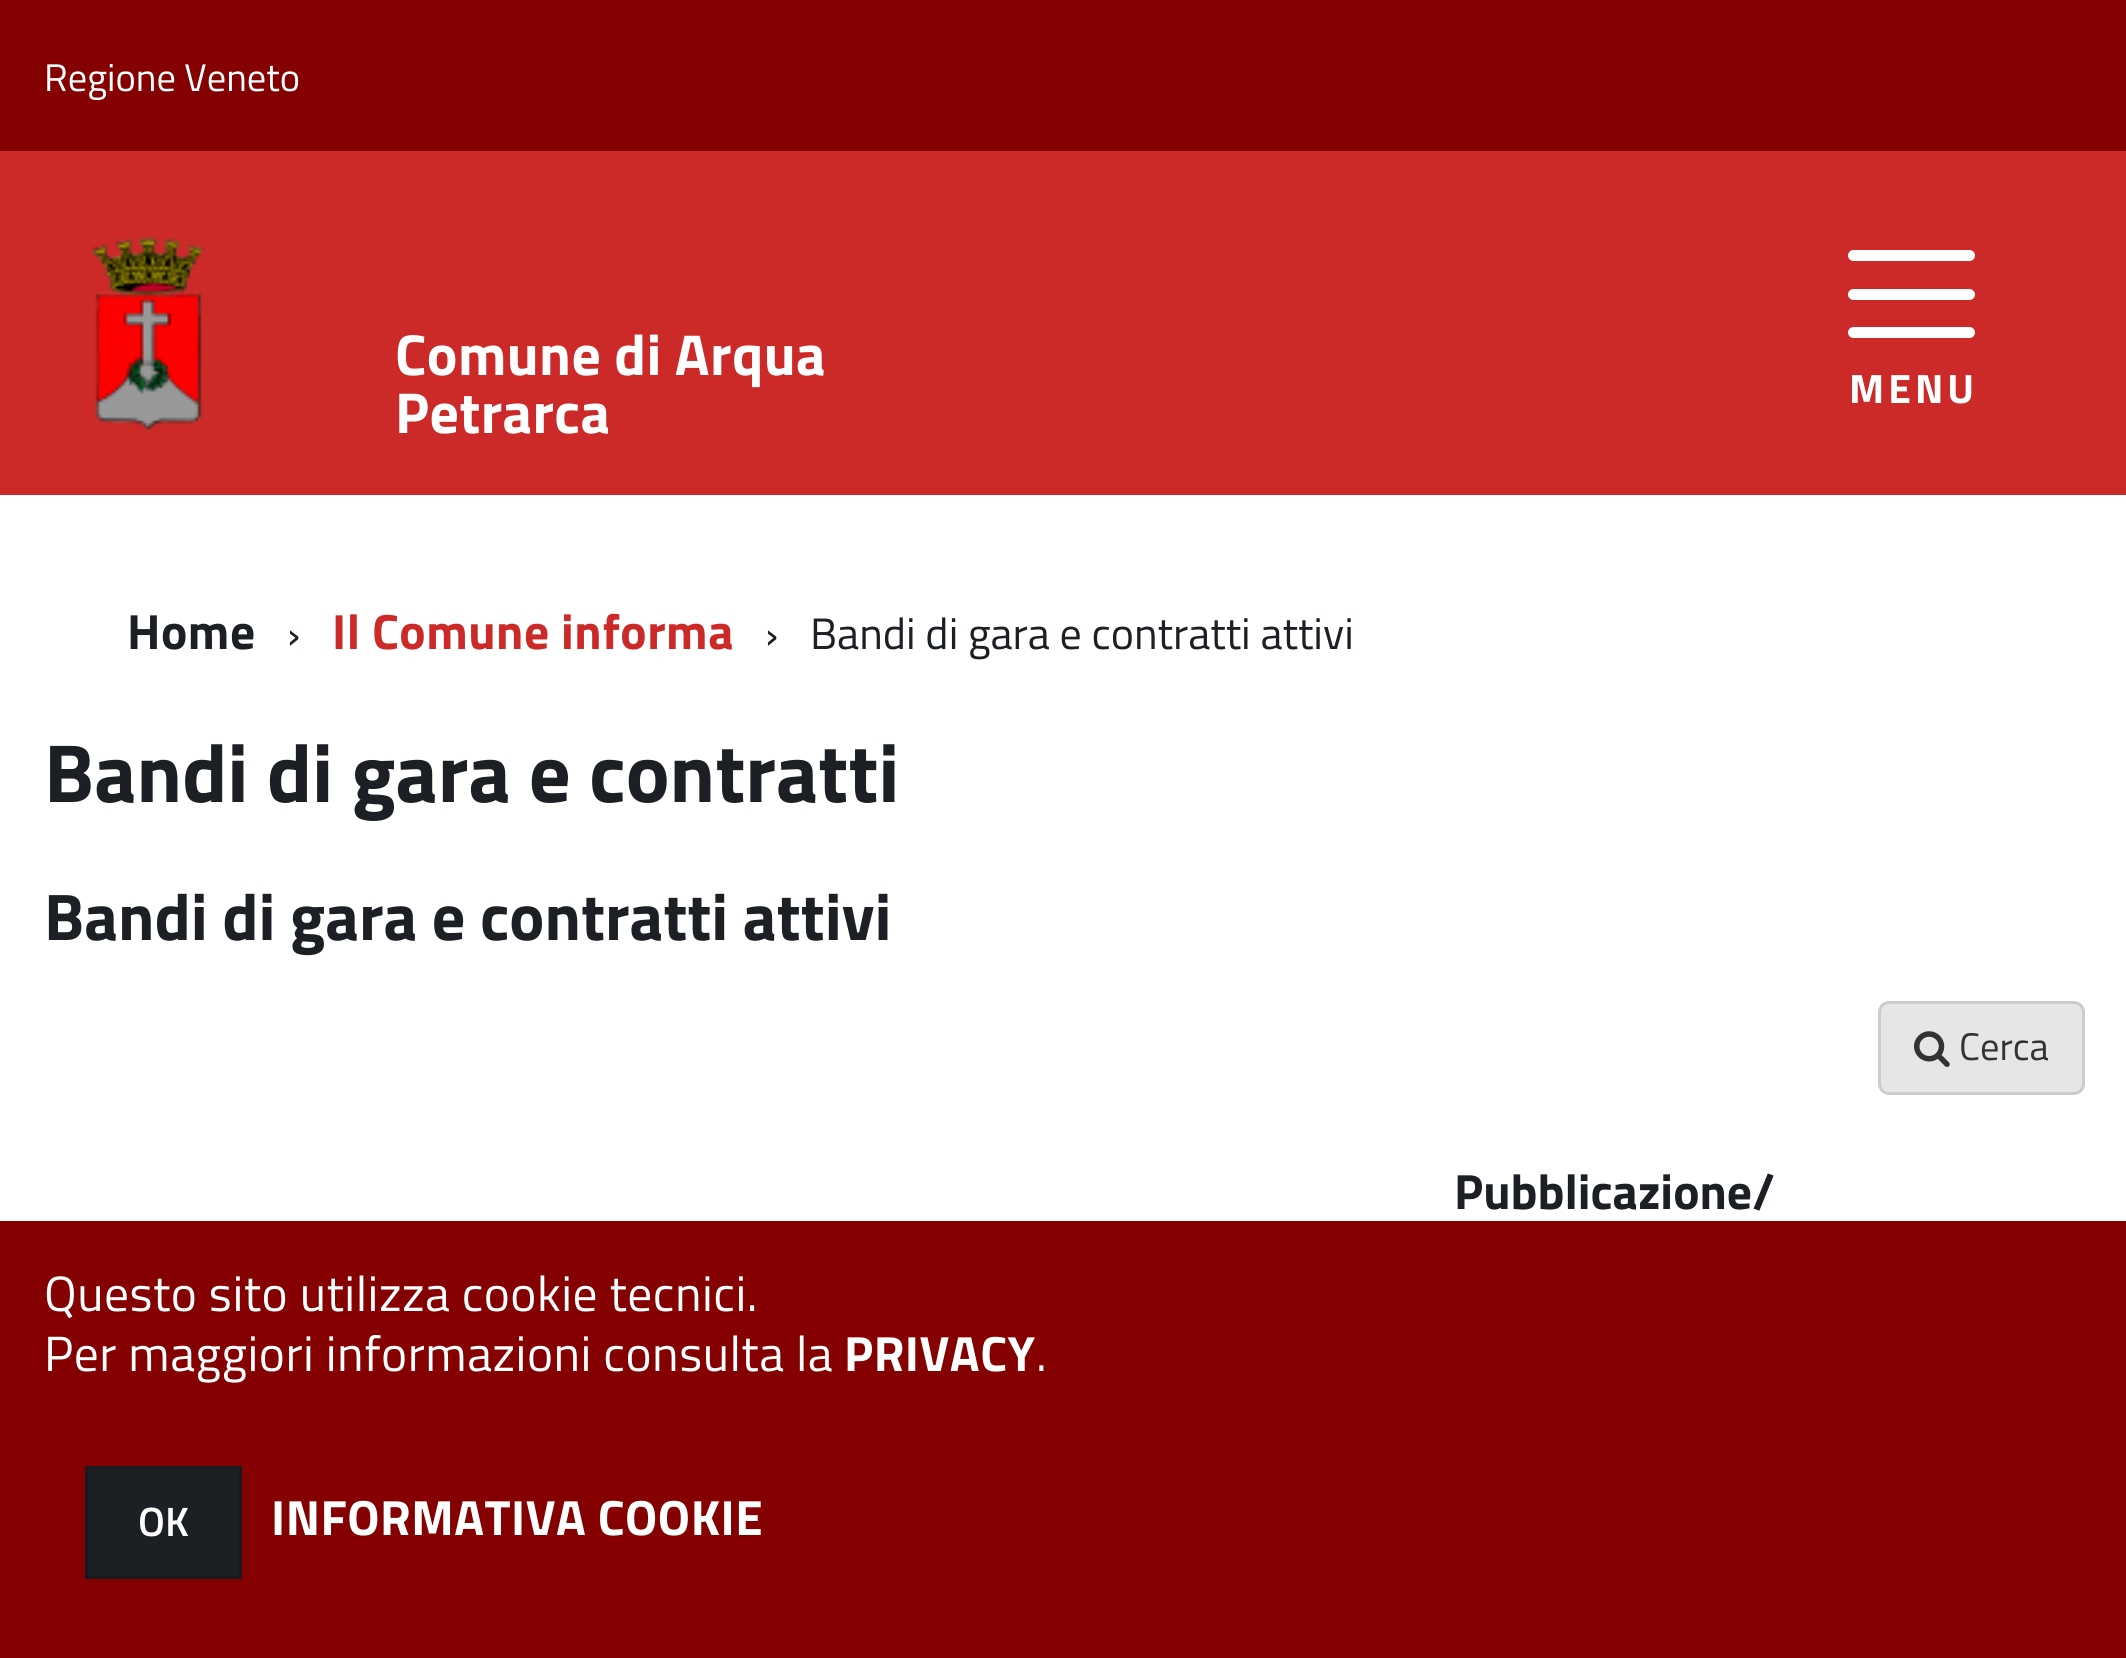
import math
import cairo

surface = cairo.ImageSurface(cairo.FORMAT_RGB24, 2126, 1658)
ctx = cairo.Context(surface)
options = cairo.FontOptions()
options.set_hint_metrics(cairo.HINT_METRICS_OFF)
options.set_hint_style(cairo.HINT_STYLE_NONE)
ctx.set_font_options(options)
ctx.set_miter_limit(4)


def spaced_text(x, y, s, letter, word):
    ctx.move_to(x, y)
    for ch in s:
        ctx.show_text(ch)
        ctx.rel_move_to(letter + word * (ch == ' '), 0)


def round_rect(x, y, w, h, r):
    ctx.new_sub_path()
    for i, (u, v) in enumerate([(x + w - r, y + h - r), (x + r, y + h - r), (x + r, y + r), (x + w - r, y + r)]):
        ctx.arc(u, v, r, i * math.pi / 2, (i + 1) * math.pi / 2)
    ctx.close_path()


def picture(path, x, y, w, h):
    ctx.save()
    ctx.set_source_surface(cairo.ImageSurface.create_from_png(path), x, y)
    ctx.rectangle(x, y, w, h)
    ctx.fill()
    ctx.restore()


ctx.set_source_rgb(1, 1, 1)
ctx.paint()
ctx.set_source_rgb(0.522, 0, 0)
ctx.rectangle(0, 0, 2126, 151)
ctx.fill()
ctx.select_font_face("Titillium Web")
ctx.set_font_size(38.5)
ctx.set_source_rgb(1, 1, 1)
ctx.move_to(44, 91)
ctx.show_text("Regione Veneto")
ctx.set_source_rgb(0.8, 0.161, 0.161)
ctx.rectangle(0, 151, 2126, 344)
ctx.fill()
picture("img1.png", 90, 235, 115, 197)
ctx.select_font_face("Titillium Web", cairo.FONT_SLANT_NORMAL, cairo.FONT_WEIGHT_BOLD)
ctx.set_font_size(57.75)
ctx.set_source_rgb(1, 1, 1)
spaced_text(395, 375, "Comune di Arqua", 0.4, 0)
spaced_text(395, 433, "Petrarca", 0.4, 0)
round_rect(1848, 289, 127, 11, 5.5)
ctx.fill()
round_rect(1848, 250, 127, 11, 5.5)
ctx.fill()
round_rect(1848, 327, 127, 11, 5.5)
ctx.fill()
ctx.set_font_size(41)
spaced_text(1849, 403, "MENU", 4, 0)
ctx.set_font_size(49.5)
ctx.set_source_rgb(0.11, 0.125, 0.141)
spaced_text(127, 649, "Home", 0.5, 0)
ctx.select_font_face("Titillium Web")
ctx.set_font_size(44)
ctx.move_to(287, 649)
ctx.show_text("›")
ctx.select_font_face("Titillium Web", cairo.FONT_SLANT_NORMAL, cairo.FONT_WEIGHT_BOLD)
ctx.set_font_size(49.5)
ctx.set_source_rgb(0.8, 0.161, 0.161)
spaced_text(332, 649, "Il Comune informa", 0.5, 0)
ctx.select_font_face("Titillium Web")
ctx.set_font_size(44)
ctx.set_source_rgb(0.11, 0.125, 0.141)
ctx.move_to(765, 649)
ctx.show_text("›")
ctx.move_to(810, 649)
ctx.show_text("Bandi di gara e contratti attivi")
ctx.select_font_face("Titillium Web", cairo.FONT_SLANT_NORMAL, cairo.FONT_WEIGHT_BOLD)
ctx.set_font_size(82.5)
ctx.move_to(44, 802)
ctx.show_text("Bandi di gara e contratti")
ctx.set_font_size(66)
ctx.move_to(44, 940)
ctx.show_text("Bandi di gara e contratti attivi")
ctx.set_source_rgb(0.902, 0.902, 0.902)
round_rect(1879.5, 1002.5, 204, 91, 9.5)
ctx.fill_preserve()
ctx.set_source_rgb(0.8, 0.8, 0.8)
ctx.set_line_width(3)
ctx.stroke()
picture("img2.png", 1914, 1031, 36, 36)
ctx.select_font_face("Titillium Web")
ctx.set_font_size(38.5)
ctx.set_source_rgb(0.2, 0.2, 0.2)
ctx.move_to(1959, 1060)
ctx.show_text("Cerca")
ctx.select_font_face("Titillium Web", cairo.FONT_SLANT_NORMAL, cairo.FONT_WEIGHT_BOLD)
ctx.set_font_size(49.5)
ctx.set_source_rgb(0.11, 0.125, 0.141)
ctx.move_to(1454, 1209)
ctx.show_text("Pubblicazione/")
ctx.set_source_rgb(0.522, 0, 0)
ctx.rectangle(0, 1221, 2126, 437)
ctx.fill()
ctx.select_font_face("Titillium Web")
ctx.set_source_rgb(1, 1, 1)
spaced_text(44, 1311, "Questo sito utilizza cookie tecnici.", 0.5, 0)
spaced_text(44, 1371, "Per maggiori informazioni consulta la", 0.5, 0)
ctx.select_font_face("Titillium Web", cairo.FONT_SLANT_NORMAL, cairo.FONT_WEIGHT_BOLD)
spaced_text(844, 1371, "PRIVACY", 0.5, 0)
ctx.select_font_face("Titillium Web")
spaced_text(1036, 1371, ".", 0.5, 0)
ctx.set_source_rgb(0.11, 0.125, 0.141)
ctx.rectangle(86.5, 1467.5, 154, 110)
ctx.fill_preserve()
ctx.set_source_rgb(0.09, 0.106, 0.122)
ctx.stroke()
ctx.select_font_face("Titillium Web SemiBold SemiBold")
ctx.set_font_size(41)
ctx.set_source_rgb(1, 1, 1)
ctx.move_to(138, 1536)
ctx.show_text("OK")
ctx.select_font_face("Titillium Web", cairo.FONT_SLANT_NORMAL, cairo.FONT_WEIGHT_BOLD)
ctx.set_font_size(49.5)
spaced_text(271, 1535, "INFORMATIVA COOKIE", 0.5, 0)
surface.write_to_png("page.png")
